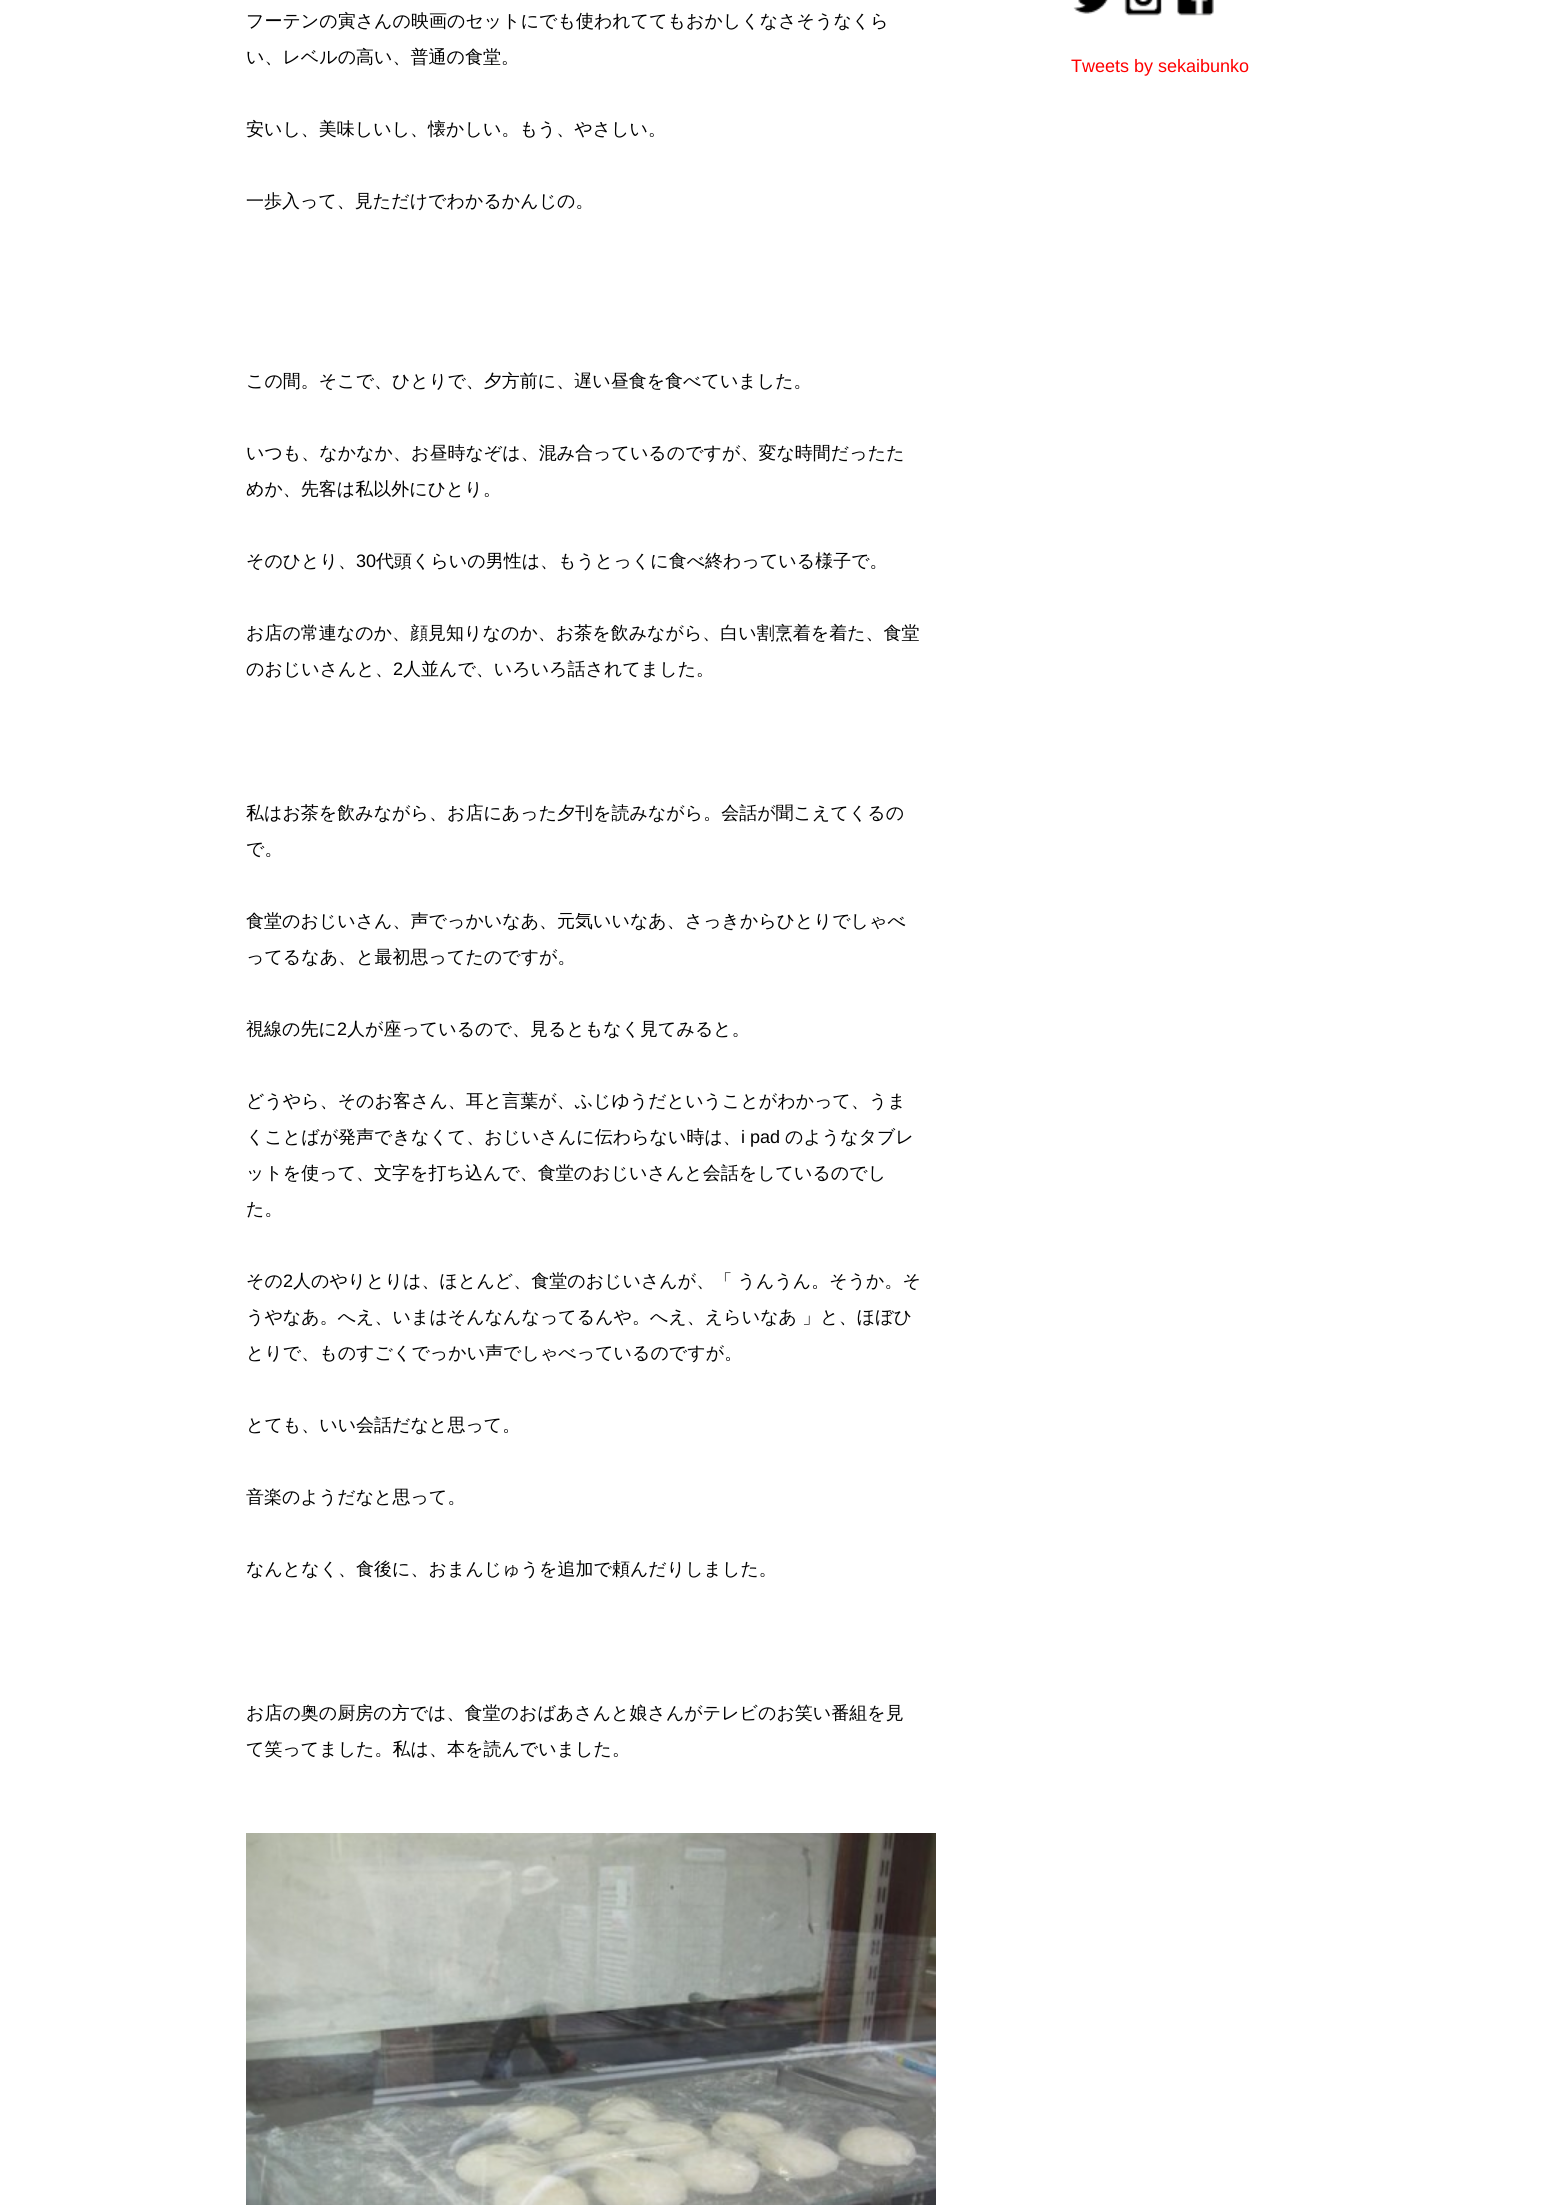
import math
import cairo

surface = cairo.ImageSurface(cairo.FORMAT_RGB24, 1556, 2205)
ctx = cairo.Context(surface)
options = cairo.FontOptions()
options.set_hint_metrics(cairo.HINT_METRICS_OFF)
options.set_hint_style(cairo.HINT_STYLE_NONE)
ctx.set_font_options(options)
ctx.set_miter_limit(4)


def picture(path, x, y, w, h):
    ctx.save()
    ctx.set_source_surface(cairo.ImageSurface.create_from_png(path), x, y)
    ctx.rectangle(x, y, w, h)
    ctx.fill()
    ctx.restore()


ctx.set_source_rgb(1, 1, 1)
ctx.paint()
ctx.select_font_face("WenQuanYi Zen Hei Medium")
ctx.set_font_size(18)
ctx.set_source_rgb(0, 0, 0)
ctx.move_to(246, 27)
ctx.show_text("フーテンの寅さんの映画のセットにでも使われててもおかしくなさそうなくら")
ctx.move_to(246, 63)
ctx.show_text("い、レベルの高い、普通の食堂。")
ctx.move_to(246, 135)
ctx.show_text("安いし、美味しいし、懐かしい。もう、やさしい。")
ctx.move_to(246, 207)
ctx.show_text("一歩入って、見ただけでわかるかんじの。")
ctx.move_to(246, 387)
ctx.show_text("この間。そこで、ひとりで、夕方前に、遅い昼食を食べていました。")
ctx.move_to(246, 459)
ctx.show_text("いつも、なかなか、お昼時なぞは、混み合っているのですが、変な時間だったた")
ctx.move_to(246, 495)
ctx.show_text("めか、先客は私以外にひとり。")
ctx.move_to(246, 567)
ctx.show_text("そのひとり、")
ctx.select_font_face("Liberation Sans")
ctx.move_to(356, 567)
ctx.show_text("30")
ctx.select_font_face("WenQuanYi Zen Hei Medium")
ctx.move_to(376, 567)
ctx.show_text("代頭くらいの男性は、もうとっくに食べ終わっている様子で。")
ctx.move_to(246, 639)
ctx.show_text("お店の常連なのか、顔見知りなのか、お茶を飲みながら、白い割烹着を着た、食堂")
ctx.move_to(246, 675)
ctx.show_text("のおじいさんと、")
ctx.select_font_face("Liberation Sans")
ctx.move_to(393, 675)
ctx.show_text("2")
ctx.select_font_face("WenQuanYi Zen Hei Medium")
ctx.move_to(403, 675)
ctx.show_text("人並んで、いろいろ話されてました。")
ctx.move_to(246, 819)
ctx.show_text("私はお茶を飲みながら、お店にあった夕刊を読みながら。会話が聞こえてくるの")
ctx.move_to(246, 855)
ctx.show_text("で。")
ctx.move_to(246, 927)
ctx.show_text("食堂のおじいさん、声でっかいなあ、元気いいなあ、さっきからひとりでしゃべ")
ctx.move_to(246, 963)
ctx.show_text("ってるなあ、と最初思ってたのですが。")
ctx.move_to(246, 1035)
ctx.show_text("視線の先に")
ctx.select_font_face("Liberation Sans")
ctx.move_to(337, 1035)
ctx.show_text("2")
ctx.select_font_face("WenQuanYi Zen Hei Medium")
ctx.move_to(347, 1035)
ctx.show_text("人が座っているので、見るともなく見てみると。")
ctx.move_to(246, 1107)
ctx.show_text("どうやら、そのお客さん、耳と言葉が、ふじゆうだということがわかって、うま")
ctx.move_to(246, 1143)
ctx.show_text("くことばが発声できなくて、おじいさんに伝わらない時は、")
ctx.select_font_face("Liberation Sans")
ctx.move_to(741, 1143)
ctx.show_text("i pad")
ctx.select_font_face("WenQuanYi Zen Hei Medium")
ctx.move_to(785, 1143)
ctx.show_text("のようなタブレ")
ctx.move_to(246, 1179)
ctx.show_text("ットを使って、文字を打ち込んで、食堂のおじいさんと会話をしているのでし")
ctx.move_to(246, 1215)
ctx.show_text("た。")
ctx.move_to(246, 1287)
ctx.show_text("その")
ctx.select_font_face("Liberation Sans")
ctx.move_to(283, 1287)
ctx.show_text("2")
ctx.select_font_face("WenQuanYi Zen Hei Medium")
ctx.move_to(293, 1287)
ctx.show_text("人のやりとりは、ほとんど、食堂のおじいさんが、「 うんうん。そうか。そ")
ctx.move_to(246, 1323)
ctx.show_text("うやなあ。へえ、いまはそんなんなってるんや。へえ、えらいなあ 」と、ほぼひ")
ctx.move_to(246, 1359)
ctx.show_text("とりで、ものすごくでっかい声でしゃべっているのですが。")
ctx.move_to(246, 1431)
ctx.show_text("とても、いい会話だなと思って。")
ctx.move_to(246, 1503)
ctx.show_text("音楽のようだなと思って。")
ctx.move_to(246, 1575)
ctx.show_text("なんとなく、食後に、おまんじゅうを追加で頼んだりしました。")
ctx.move_to(246, 1719)
ctx.show_text("お店の奥の厨房の方では、食堂のおばあさんと娘さんがテレビのお笑い番組を見")
ctx.move_to(246, 1755)
ctx.show_text("て笑ってました。私は、本を読んでいました。")
picture("img1.png", 246, 1833, 690, 372)
picture("img2.png", 1073, 0, 35, 14)
picture("img3.png", 1124, 0, 38, 16)
picture("img4.png", 1177, 0, 37, 16)
ctx.select_font_face("Liberation Sans")
ctx.set_source_rgb(1, 0, 0)
ctx.move_to(1071, 72)
ctx.show_text("Tweets by sekaibunko")
surface.write_to_png("page.png")
